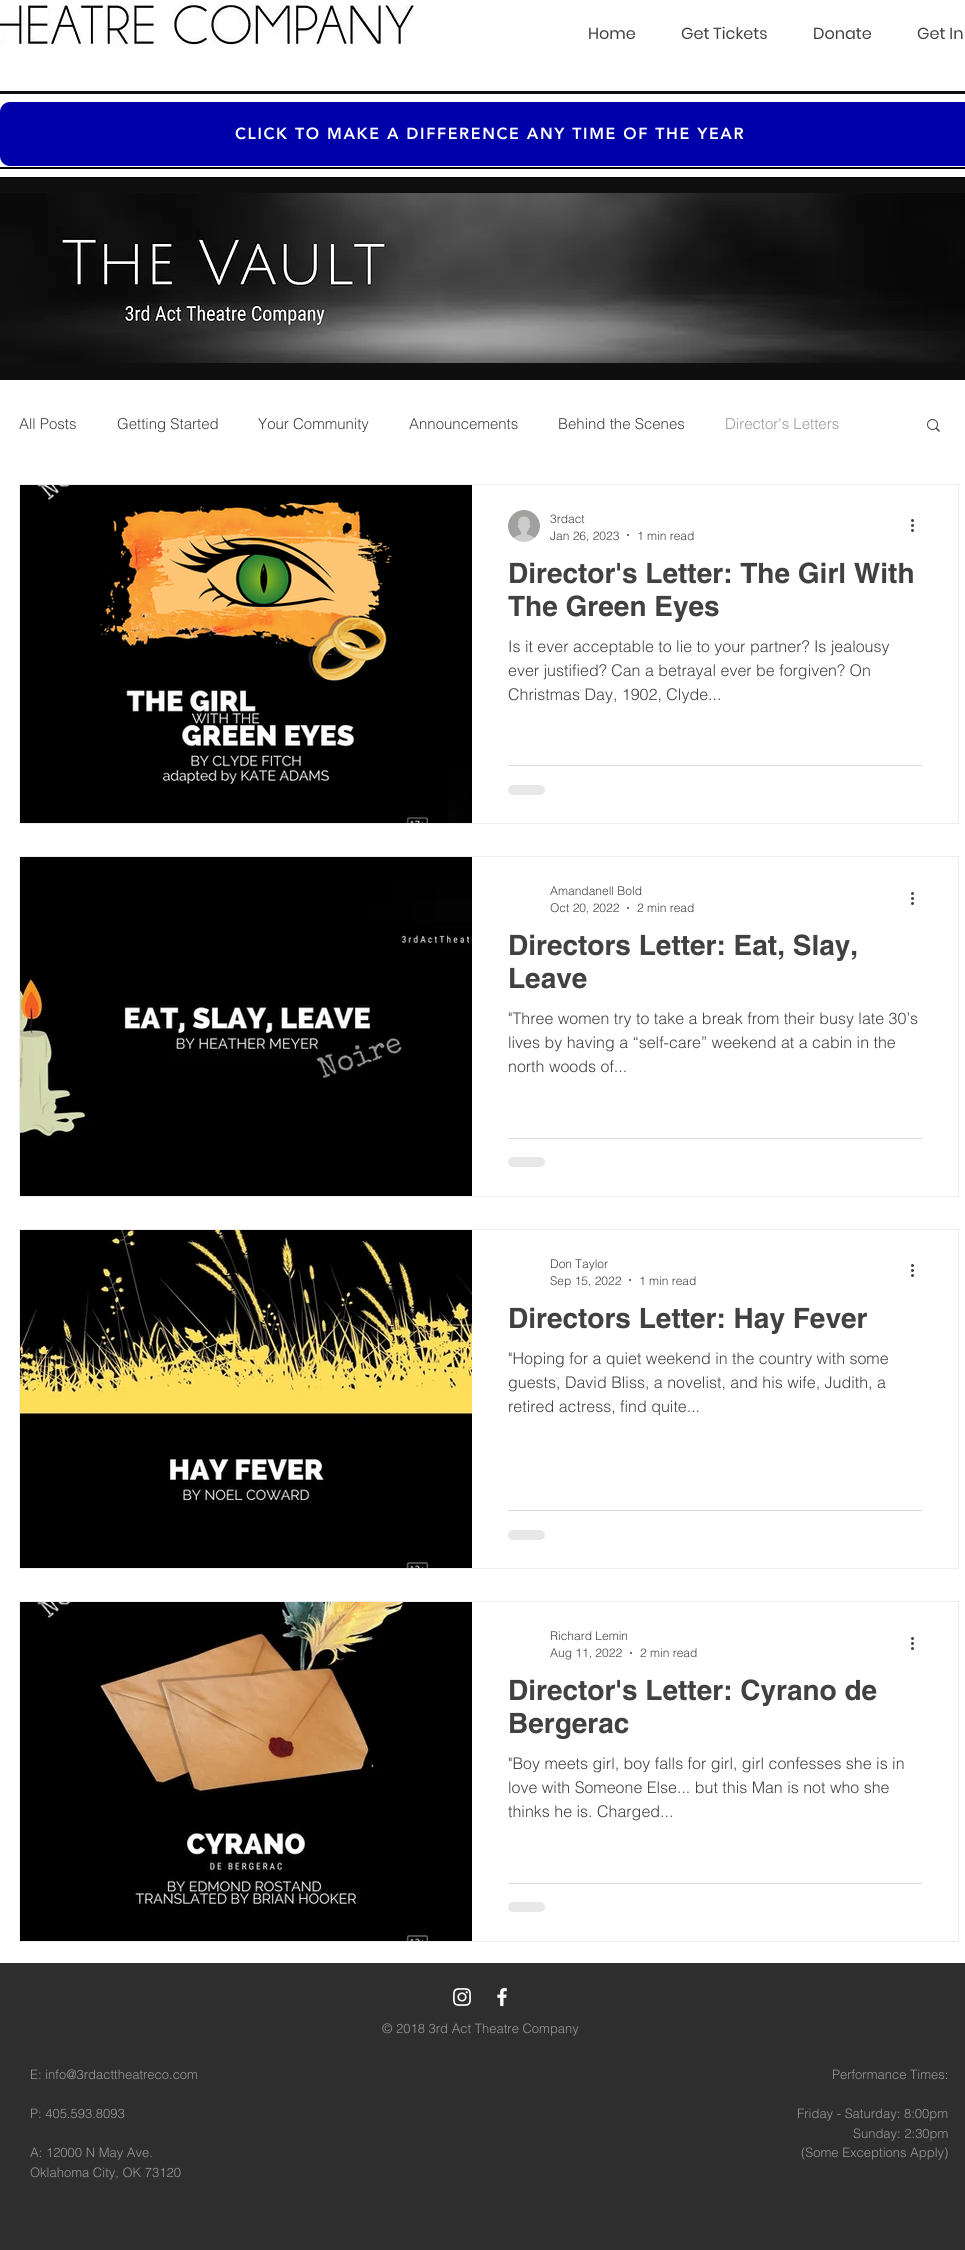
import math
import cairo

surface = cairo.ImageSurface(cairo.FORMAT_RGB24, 965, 2250)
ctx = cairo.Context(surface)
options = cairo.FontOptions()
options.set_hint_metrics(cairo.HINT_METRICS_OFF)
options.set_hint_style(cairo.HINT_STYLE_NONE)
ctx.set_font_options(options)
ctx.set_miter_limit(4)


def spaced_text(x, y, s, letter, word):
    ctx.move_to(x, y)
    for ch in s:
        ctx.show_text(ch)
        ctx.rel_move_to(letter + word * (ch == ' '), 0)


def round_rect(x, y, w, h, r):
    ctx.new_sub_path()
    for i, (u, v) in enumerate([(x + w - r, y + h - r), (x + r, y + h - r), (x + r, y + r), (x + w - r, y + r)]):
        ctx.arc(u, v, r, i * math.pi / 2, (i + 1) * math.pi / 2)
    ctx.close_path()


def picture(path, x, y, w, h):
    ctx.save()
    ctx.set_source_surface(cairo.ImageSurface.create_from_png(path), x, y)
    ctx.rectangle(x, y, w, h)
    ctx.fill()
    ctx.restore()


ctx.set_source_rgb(1, 1, 1)
ctx.paint()
picture("img1.png", 0, 5, 414, 41)
ctx.select_font_face("Poppins")
ctx.set_font_size(16)
ctx.set_source_rgb(0.255, 0.255, 0.255)
ctx.move_to(588, 39)
ctx.show_text("Home")
ctx.move_to(681, 39)
ctx.show_text("Get Tickets")
ctx.move_to(813, 39)
ctx.show_text("Donate")
ctx.move_to(917, 39)
ctx.show_text("Get In")
ctx.set_source_rgb(0.059, 0.059, 0.059)
ctx.rectangle(0, 91, 965, 3)
ctx.fill()
ctx.set_source_rgb(0, 0, 0.667)
round_rect(0, 102, 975, 64, 10)
ctx.fill()
ctx.select_font_face("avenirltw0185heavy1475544 Black")
ctx.set_source_rgb(1, 1, 1)
spaced_text(235, 139, "CLICK TO MAKE A DIFFERENCE ANY TIME OF THE YEAR", 1.6, 0)
ctx.set_source_rgb(0, 0, 0)
ctx.rectangle(0, 177, 965, 1)
ctx.fill()
ctx.rectangle(0, 167, 965, 2)
ctx.fill()
ctx.set_source_rgb(0.059, 0.059, 0.059)
ctx.rectangle(0, 178, 965, 202)
ctx.fill()
picture("img2.png", 0, 193, 965, 170)
ctx.select_font_face("helvetica Light")
ctx.set_font_size(15)
ctx.set_source_rgb(0.255, 0.255, 0.255)
ctx.move_to(19, 429)
ctx.show_text("All Posts")
ctx.move_to(117, 429)
ctx.show_text("Getting Started")
ctx.move_to(258, 429)
ctx.show_text("Your Community")
ctx.move_to(409, 429)
ctx.show_text("Announcements")
ctx.move_to(558, 429)
ctx.show_text("Behind the Scenes")
ctx.set_source_rgb(0.6, 0.6, 0.592)
ctx.move_to(725, 429)
ctx.show_text("Director's Letters")
picture("img3.png", 927, 419, 13, 13)
ctx.rectangle(19.5, 484.5, 939, 339)
ctx.set_source_rgb(0.933, 0.925, 0.925)
ctx.set_line_width(1)
ctx.stroke()
picture("img4.png", 20, 485, 428, 338)
picture("img5.png", 448, 485, 24, 338)
picture("img6.png", 508, 510, 32, 32)
ctx.set_font_size(12)
ctx.set_source_rgb(0.255, 0.255, 0.255)
ctx.move_to(550, 523)
ctx.show_text("3rdact")
ctx.move_to(550, 540)
ctx.show_text("Jan 26, 2023")
ctx.new_path()
ctx.arc(628, 535, 1, 0, 2 * math.pi)
ctx.fill()
ctx.move_to(637, 540)
ctx.show_text("1 min read")
picture("img7.png", 911, 519, 3, 13)
ctx.select_font_face("helvetica", cairo.FONT_SLANT_NORMAL, cairo.FONT_WEIGHT_BOLD)
ctx.set_font_size(28)
ctx.move_to(508, 583)
ctx.show_text("Director's Letter: The Girl With")
ctx.move_to(508, 616)
ctx.show_text("The Green Eyes")
ctx.select_font_face("helvetica Light")
ctx.set_font_size(16)
ctx.move_to(508, 652)
ctx.show_text("Is it ever acceptable to lie to your partner? Is jealousy")
ctx.move_to(508, 676)
ctx.show_text("ever justified? Can a betrayal ever be forgiven? On")
ctx.move_to(508, 700)
ctx.show_text("Christmas Day, 1902, Clyde...")
ctx.set_source_rgb(0.851, 0.851, 0.851)
ctx.rectangle(508, 765, 414, 1)
ctx.fill()
ctx.set_source_rgb(0.91, 0.91, 0.91)
round_rect(508, 785, 37, 10, 5)
ctx.fill()
ctx.rectangle(19.5, 856.5, 939, 340)
ctx.set_source_rgb(0.933, 0.925, 0.925)
ctx.stroke()
picture("img8.png", 20, 857, 452, 65)
picture("img9.png", 20, 922, 452, 274)
ctx.set_font_size(12)
ctx.set_source_rgb(0.255, 0.255, 0.255)
ctx.move_to(550, 895)
ctx.show_text("Amandanell Bold")
ctx.move_to(550, 912)
ctx.show_text("Oct 20, 2022")
ctx.new_path()
ctx.arc(628, 908, 1, 0, 2 * math.pi)
ctx.fill()
ctx.move_to(637, 912)
ctx.show_text("2 min read")
picture("img7.png", 911, 892, 3, 13)
ctx.select_font_face("helvetica", cairo.FONT_SLANT_NORMAL, cairo.FONT_WEIGHT_BOLD)
ctx.set_font_size(28)
ctx.move_to(508, 955)
ctx.show_text("Directors Letter: Eat, Slay,")
ctx.move_to(508, 988)
ctx.show_text("Leave")
ctx.select_font_face("helvetica Light")
ctx.set_font_size(16)
ctx.move_to(508, 1024)
ctx.show_text("\"Three women try to take a break from their busy late 30’s")
ctx.move_to(508, 1048)
ctx.show_text("lives by having a “self-care” weekend at a cabin in the")
ctx.move_to(508, 1072)
ctx.show_text("north woods of...")
ctx.set_source_rgb(0.851, 0.851, 0.851)
ctx.rectangle(508, 1138, 414, 1)
ctx.fill()
ctx.set_source_rgb(0.91, 0.91, 0.91)
round_rect(508, 1157, 37, 10, 5)
ctx.fill()
ctx.rectangle(19.5, 1229.5, 939, 339)
ctx.set_source_rgb(0.933, 0.925, 0.925)
ctx.stroke()
picture("img10.png", 20, 1230, 452, 338)
ctx.set_font_size(12)
ctx.set_source_rgb(0.255, 0.255, 0.255)
ctx.move_to(550, 1268)
ctx.show_text("Don Taylor")
ctx.move_to(550, 1285)
ctx.show_text("Sep 15, 2022")
ctx.new_path()
ctx.arc(630, 1280, 1, 0, 2 * math.pi)
ctx.fill()
ctx.move_to(639, 1285)
ctx.show_text("1 min read")
picture("img7.png", 911, 1264, 3, 13)
ctx.select_font_face("helvetica", cairo.FONT_SLANT_NORMAL, cairo.FONT_WEIGHT_BOLD)
ctx.set_font_size(28)
ctx.move_to(508, 1328)
ctx.show_text("Directors Letter: Hay Fever")
ctx.select_font_face("helvetica Light")
ctx.set_font_size(16)
ctx.move_to(508, 1364)
ctx.show_text("\"Hoping for a quiet weekend in the country with some")
ctx.move_to(508, 1388)
ctx.show_text("guests, David Bliss, a novelist, and his wife, Judith, a")
ctx.move_to(508, 1412)
ctx.show_text("retired actress, find quite...")
ctx.set_source_rgb(0.851, 0.851, 0.851)
ctx.rectangle(508, 1510, 414, 1)
ctx.fill()
ctx.set_source_rgb(0.91, 0.91, 0.91)
round_rect(508, 1530, 37, 10, 5)
ctx.fill()
ctx.rectangle(19.5, 1601.5, 939, 340)
ctx.set_source_rgb(0.933, 0.925, 0.925)
ctx.stroke()
picture("img11.png", 20, 1602, 452, 339)
ctx.set_font_size(12)
ctx.set_source_rgb(0.255, 0.255, 0.255)
ctx.move_to(550, 1640)
ctx.show_text("Richard Lemin")
ctx.move_to(550, 1657)
ctx.show_text("Aug 11, 2022")
ctx.new_path()
ctx.arc(631, 1653, 1, 0, 2 * math.pi)
ctx.fill()
ctx.move_to(640, 1657)
ctx.show_text("2 min read")
picture("img7.png", 911, 1637, 3, 13)
ctx.select_font_face("helvetica", cairo.FONT_SLANT_NORMAL, cairo.FONT_WEIGHT_BOLD)
ctx.set_font_size(28)
ctx.move_to(508, 1700)
ctx.show_text("Director's Letter: Cyrano de")
ctx.move_to(508, 1733)
ctx.show_text("Bergerac")
ctx.select_font_face("helvetica Light")
ctx.set_font_size(16)
ctx.move_to(508, 1769)
ctx.show_text("\"Boy meets girl, boy falls for girl, girl confesses she is in")
ctx.move_to(508, 1793)
ctx.show_text("love with Someone Else... but this Man is not who she")
ctx.move_to(508, 1817)
ctx.show_text("thinks he is. Charged...")
ctx.set_source_rgb(0.851, 0.851, 0.851)
ctx.rectangle(508, 1883, 414, 1)
ctx.fill()
ctx.set_source_rgb(0.91, 0.91, 0.91)
round_rect(508, 1902, 37, 10, 5)
ctx.fill()
ctx.set_source_rgb(0.184, 0.18, 0.18)
ctx.rectangle(0, 1963, 965, 287)
ctx.fill()
picture("img12.png", 453, 1988, 18, 18)
picture("img13.png", 497, 1987, 10, 20)
ctx.set_font_size(13)
ctx.set_source_rgb(0.6, 0.6, 0.592)
ctx.move_to(382, 2033)
ctx.show_text("© 2018 3rd Act Theatre Company")
ctx.move_to(30, 2079)
ctx.show_text("E: info@3rdacttheatreco.com")
ctx.move_to(30, 2118)
ctx.show_text("P: 405.593.8093")
ctx.move_to(30, 2157)
ctx.show_text("A: 12000 N May Ave.")
ctx.move_to(30, 2177)
ctx.show_text("Oklahoma City, OK 73120")
ctx.move_to(832, 2079)
ctx.show_text("Performance Times:")
ctx.move_to(797, 2118)
ctx.show_text("Friday - Saturday: 8:00pm")
ctx.move_to(853, 2138)
ctx.show_text("Sunday: 2:30pm")
ctx.move_to(801, 2157)
ctx.show_text("(Some Exceptions Apply)")
surface.write_to_png("page.png")
